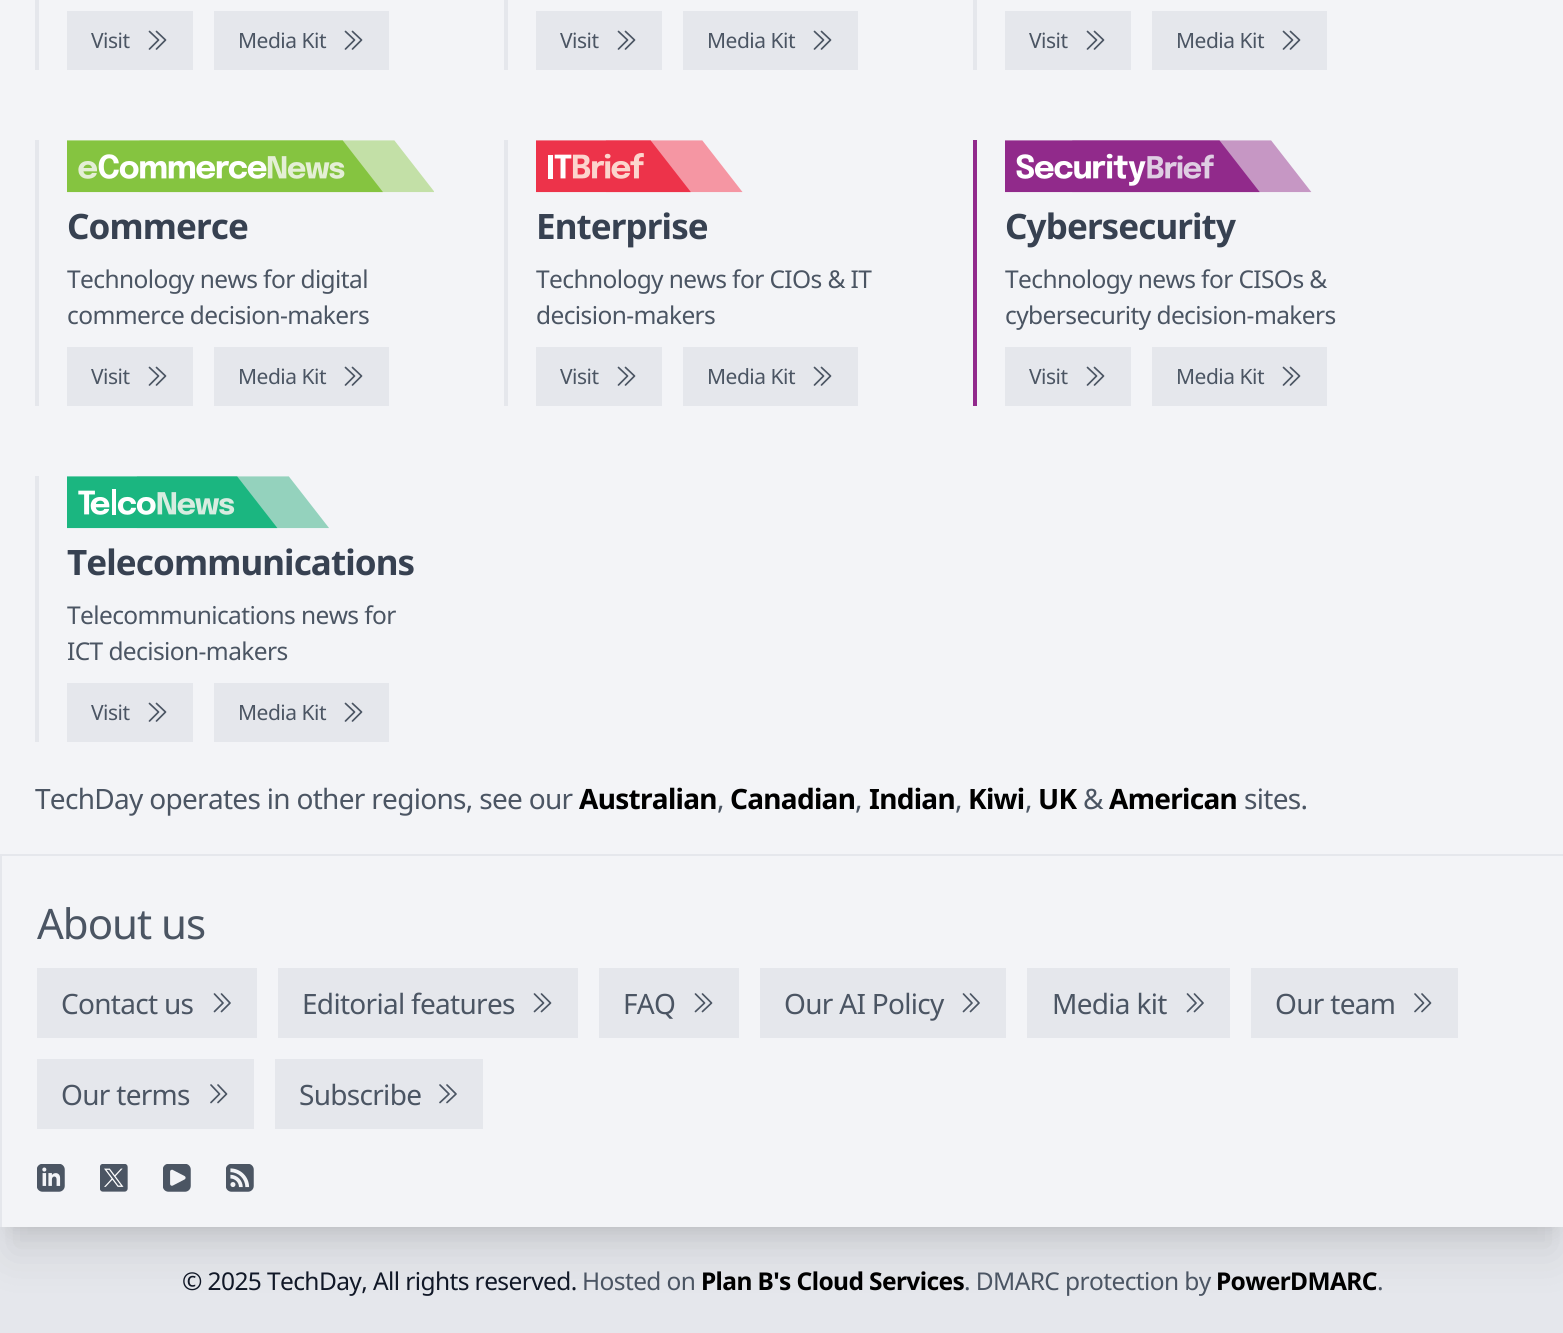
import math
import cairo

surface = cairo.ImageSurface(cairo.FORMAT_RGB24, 1563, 1333)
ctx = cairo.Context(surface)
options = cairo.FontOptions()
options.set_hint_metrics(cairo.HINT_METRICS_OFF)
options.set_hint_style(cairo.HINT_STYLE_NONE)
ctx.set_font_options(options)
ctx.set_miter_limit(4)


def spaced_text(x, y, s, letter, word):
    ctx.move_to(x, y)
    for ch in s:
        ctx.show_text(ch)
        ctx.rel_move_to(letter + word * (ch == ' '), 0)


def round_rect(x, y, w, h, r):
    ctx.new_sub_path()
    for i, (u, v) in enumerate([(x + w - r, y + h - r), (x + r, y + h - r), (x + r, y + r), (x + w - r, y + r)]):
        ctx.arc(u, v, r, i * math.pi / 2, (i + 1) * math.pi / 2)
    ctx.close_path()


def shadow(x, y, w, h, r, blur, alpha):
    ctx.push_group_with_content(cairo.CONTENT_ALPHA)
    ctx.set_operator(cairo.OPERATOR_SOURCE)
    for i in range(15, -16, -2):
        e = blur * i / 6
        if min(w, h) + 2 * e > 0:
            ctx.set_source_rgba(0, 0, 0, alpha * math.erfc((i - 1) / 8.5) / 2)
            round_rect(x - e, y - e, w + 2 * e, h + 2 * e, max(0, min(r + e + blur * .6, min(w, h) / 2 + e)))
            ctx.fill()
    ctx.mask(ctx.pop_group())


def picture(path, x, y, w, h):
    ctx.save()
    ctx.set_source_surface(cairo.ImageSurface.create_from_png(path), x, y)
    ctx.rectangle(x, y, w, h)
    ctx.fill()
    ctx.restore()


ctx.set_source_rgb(0.898, 0.906, 0.922)
ctx.paint()
ctx.set_source_rgb(0, 0, 0)
shadow(11, -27, 1543, 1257, 0, 9, 0.1)
shadow(9, -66, 1547, 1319, 0, 22, 0.1)
ctx.set_source_rgb(0.953, 0.957, 0.965)
ctx.rectangle(0, 0, 1563, 1227)
ctx.fill()
ctx.set_source_rgb(0.898, 0.906, 0.922)
ctx.rectangle(35, 0, 4, 70)
ctx.fill()
ctx.rectangle(67, 11, 126, 59)
ctx.fill()
ctx.select_font_face("Noto Sans")
ctx.set_font_size(21)
ctx.set_source_rgb(0.294, 0.333, 0.388)
spaced_text(91, 48, "Visit", -0.5, 0)
ctx.new_path()
ctx.move_to(156.5, 31.5)
ctx.line_to(165.5, 40)
ctx.line_to(156.5, 49)
ctx.move_to(149.5, 31.5)
ctx.line_to(158.5, 40)
ctx.line_to(149.5, 49)
ctx.set_line_width(1.7)
ctx.set_line_cap(cairo.LINE_CAP_ROUND)
ctx.set_line_join(cairo.LINE_JOIN_ROUND)
ctx.stroke()
ctx.set_source_rgb(0.898, 0.906, 0.922)
ctx.rectangle(214, 11, 175, 59)
ctx.fill()
ctx.set_source_rgb(0.294, 0.333, 0.388)
spaced_text(238, 48, "Media Kit", -0.5, 0)
ctx.new_path()
ctx.move_to(352.5, 31.5)
ctx.line_to(361.5, 40)
ctx.line_to(352.5, 49)
ctx.move_to(345.5, 31.5)
ctx.line_to(354.5, 40)
ctx.line_to(345.5, 49)
ctx.stroke()
ctx.set_source_rgb(0.898, 0.906, 0.922)
ctx.rectangle(504, 0, 4, 70)
ctx.fill()
ctx.rectangle(536, 11, 126, 59)
ctx.fill()
ctx.set_source_rgb(0.294, 0.333, 0.388)
spaced_text(560, 48, "Visit", -0.5, 0)
ctx.new_path()
ctx.move_to(625.5, 31.5)
ctx.line_to(634.5, 40)
ctx.line_to(625.5, 49)
ctx.move_to(618.5, 31.5)
ctx.line_to(627.5, 40)
ctx.line_to(618.5, 49)
ctx.stroke()
ctx.set_source_rgb(0.898, 0.906, 0.922)
ctx.rectangle(683, 11, 175, 59)
ctx.fill()
ctx.set_source_rgb(0.294, 0.333, 0.388)
spaced_text(707, 48, "Media Kit", -0.5, 0)
ctx.new_path()
ctx.move_to(821.5, 31.5)
ctx.line_to(830.5, 40)
ctx.line_to(821.5, 49)
ctx.move_to(814.5, 31.5)
ctx.line_to(823.5, 40)
ctx.line_to(814.5, 49)
ctx.stroke()
ctx.set_source_rgb(0.898, 0.906, 0.922)
ctx.rectangle(973, 0, 4, 70)
ctx.fill()
ctx.rectangle(1005, 11, 126, 59)
ctx.fill()
ctx.set_source_rgb(0.294, 0.333, 0.388)
spaced_text(1029, 48, "Visit", -0.5, 0)
ctx.new_path()
ctx.move_to(1094.5, 31.5)
ctx.line_to(1103.5, 40)
ctx.line_to(1094.5, 49)
ctx.move_to(1087.5, 31.5)
ctx.line_to(1096.5, 40)
ctx.line_to(1087.5, 49)
ctx.stroke()
ctx.set_source_rgb(0.898, 0.906, 0.922)
ctx.rectangle(1152, 11, 175, 59)
ctx.fill()
ctx.set_source_rgb(0.294, 0.333, 0.388)
spaced_text(1176, 48, "Media Kit", -0.5, 0)
ctx.new_path()
ctx.move_to(1290.5, 31.5)
ctx.line_to(1299.5, 40)
ctx.line_to(1290.5, 49)
ctx.move_to(1283.5, 31.5)
ctx.line_to(1292.5, 40)
ctx.line_to(1283.5, 49)
ctx.stroke()
ctx.set_source_rgb(0.898, 0.906, 0.922)
ctx.rectangle(35, 140, 4, 266)
ctx.fill()
picture("img1.png", 67, 140, 367, 53)
ctx.select_font_face("Noto Sans", cairo.FONT_SLANT_NORMAL, cairo.FONT_WEIGHT_BOLD)
ctx.set_font_size(35)
ctx.set_source_rgb(0.216, 0.255, 0.318)
spaced_text(67, 239, "Commerce", -0.9, 0)
ctx.select_font_face("Noto Sans")
ctx.set_font_size(24.5)
ctx.set_source_rgb(0.294, 0.333, 0.388)
spaced_text(67, 288, "Technology news for digital", -0.6, 0)
spaced_text(67, 324, "commerce decision-makers", -0.6, 0)
ctx.set_source_rgb(0.898, 0.906, 0.922)
ctx.rectangle(67, 347, 126, 59)
ctx.fill()
ctx.set_font_size(21)
ctx.set_source_rgb(0.294, 0.333, 0.388)
spaced_text(91, 384, "Visit", -0.5, 0)
ctx.new_path()
ctx.move_to(156.5, 367.5)
ctx.line_to(165.5, 376)
ctx.line_to(156.5, 385)
ctx.move_to(149.5, 367.5)
ctx.line_to(158.5, 376)
ctx.line_to(149.5, 385)
ctx.stroke()
ctx.set_source_rgb(0.898, 0.906, 0.922)
ctx.rectangle(214, 347, 175, 59)
ctx.fill()
ctx.set_source_rgb(0.294, 0.333, 0.388)
spaced_text(238, 384, "Media Kit", -0.5, 0)
ctx.new_path()
ctx.move_to(352.5, 367.5)
ctx.line_to(361.5, 376)
ctx.line_to(352.5, 385)
ctx.move_to(345.5, 367.5)
ctx.line_to(354.5, 376)
ctx.line_to(345.5, 385)
ctx.stroke()
ctx.set_source_rgb(0.898, 0.906, 0.922)
ctx.rectangle(504, 140, 4, 266)
ctx.fill()
picture("img2.png", 536, 140, 207, 53)
ctx.select_font_face("Noto Sans", cairo.FONT_SLANT_NORMAL, cairo.FONT_WEIGHT_BOLD)
ctx.set_font_size(35)
ctx.set_source_rgb(0.216, 0.255, 0.318)
spaced_text(536, 239, "Enterprise", -0.9, 0)
ctx.select_font_face("Noto Sans")
ctx.set_font_size(24.5)
ctx.set_source_rgb(0.294, 0.333, 0.388)
spaced_text(536, 288, "Technology news for CIOs & IT", -0.6, 0)
spaced_text(536, 324, "decision-makers", -0.6, 0)
ctx.set_source_rgb(0.898, 0.906, 0.922)
ctx.rectangle(536, 347, 126, 59)
ctx.fill()
ctx.set_font_size(21)
ctx.set_source_rgb(0.294, 0.333, 0.388)
spaced_text(560, 384, "Visit", -0.5, 0)
ctx.new_path()
ctx.move_to(625.5, 367.5)
ctx.line_to(634.5, 376)
ctx.line_to(625.5, 385)
ctx.move_to(618.5, 367.5)
ctx.line_to(627.5, 376)
ctx.line_to(618.5, 385)
ctx.stroke()
ctx.set_source_rgb(0.898, 0.906, 0.922)
ctx.rectangle(683, 347, 175, 59)
ctx.fill()
ctx.set_source_rgb(0.294, 0.333, 0.388)
spaced_text(707, 384, "Media Kit", -0.5, 0)
ctx.new_path()
ctx.move_to(821.5, 367.5)
ctx.line_to(830.5, 376)
ctx.line_to(821.5, 385)
ctx.move_to(814.5, 367.5)
ctx.line_to(823.5, 376)
ctx.line_to(814.5, 385)
ctx.stroke()
ctx.set_source_rgb(0.569, 0.161, 0.549)
ctx.rectangle(973, 140, 4, 266)
ctx.fill()
picture("img3.png", 1005, 140, 307, 53)
ctx.select_font_face("Noto Sans", cairo.FONT_SLANT_NORMAL, cairo.FONT_WEIGHT_BOLD)
ctx.set_font_size(35)
ctx.set_source_rgb(0.216, 0.255, 0.318)
spaced_text(1005, 239, "Cybersecurity", -0.9, 0)
ctx.select_font_face("Noto Sans")
ctx.set_font_size(24.5)
ctx.set_source_rgb(0.294, 0.333, 0.388)
spaced_text(1005, 288, "Technology news for CISOs &", -0.6, 0)
spaced_text(1005, 324, "cybersecurity decision-makers", -0.6, 0)
ctx.set_source_rgb(0.898, 0.906, 0.922)
ctx.rectangle(1005, 347, 126, 59)
ctx.fill()
ctx.set_font_size(21)
ctx.set_source_rgb(0.294, 0.333, 0.388)
spaced_text(1029, 384, "Visit", -0.5, 0)
ctx.new_path()
ctx.move_to(1094.5, 367.5)
ctx.line_to(1103.5, 376)
ctx.line_to(1094.5, 385)
ctx.move_to(1087.5, 367.5)
ctx.line_to(1096.5, 376)
ctx.line_to(1087.5, 385)
ctx.stroke()
ctx.set_source_rgb(0.898, 0.906, 0.922)
ctx.rectangle(1152, 347, 175, 59)
ctx.fill()
ctx.set_source_rgb(0.294, 0.333, 0.388)
spaced_text(1176, 384, "Media Kit", -0.5, 0)
ctx.new_path()
ctx.move_to(1290.5, 367.5)
ctx.line_to(1299.5, 376)
ctx.line_to(1290.5, 385)
ctx.move_to(1283.5, 367.5)
ctx.line_to(1292.5, 376)
ctx.line_to(1283.5, 385)
ctx.stroke()
ctx.set_source_rgb(0.898, 0.906, 0.922)
ctx.rectangle(35, 476, 4, 266)
ctx.fill()
picture("img4.png", 67, 476, 262, 53)
ctx.select_font_face("Noto Sans", cairo.FONT_SLANT_NORMAL, cairo.FONT_WEIGHT_BOLD)
ctx.set_font_size(35)
ctx.set_source_rgb(0.216, 0.255, 0.318)
spaced_text(67, 575, "Telecommunications", -0.9, 0)
ctx.select_font_face("Noto Sans")
ctx.set_font_size(24.5)
ctx.set_source_rgb(0.294, 0.333, 0.388)
spaced_text(67, 624, "Telecommunications news for", -0.6, 0)
spaced_text(67, 660, "ICT decision-makers", -0.6, 0)
ctx.set_source_rgb(0.898, 0.906, 0.922)
ctx.rectangle(67, 683, 126, 59)
ctx.fill()
ctx.set_font_size(21)
ctx.set_source_rgb(0.294, 0.333, 0.388)
spaced_text(91, 720, "Visit", -0.5, 0)
ctx.new_path()
ctx.move_to(156.5, 703.5)
ctx.line_to(165.5, 712)
ctx.line_to(156.5, 721)
ctx.move_to(149.5, 703.5)
ctx.line_to(158.5, 712)
ctx.line_to(149.5, 721)
ctx.stroke()
ctx.set_source_rgb(0.898, 0.906, 0.922)
ctx.rectangle(214, 683, 175, 59)
ctx.fill()
ctx.set_source_rgb(0.294, 0.333, 0.388)
spaced_text(238, 720, "Media Kit", -0.5, 0)
ctx.new_path()
ctx.move_to(352.5, 703.5)
ctx.line_to(361.5, 712)
ctx.line_to(352.5, 721)
ctx.move_to(345.5, 703.5)
ctx.line_to(354.5, 712)
ctx.line_to(345.5, 721)
ctx.stroke()
ctx.set_font_size(28)
spaced_text(35, 809, "TechDay operates in other regions, see our", -0.7, 0)
ctx.select_font_face("Noto Sans", cairo.FONT_SLANT_NORMAL, cairo.FONT_WEIGHT_BOLD)
ctx.set_source_rgb(0, 0, 0)
spaced_text(579, 809, "Australian", -0.7, 0)
ctx.select_font_face("Noto Sans")
ctx.set_source_rgb(0.294, 0.333, 0.388)
spaced_text(717, 809, ",", -0.7, 0)
ctx.select_font_face("Noto Sans", cairo.FONT_SLANT_NORMAL, cairo.FONT_WEIGHT_BOLD)
ctx.set_source_rgb(0, 0, 0)
spaced_text(730, 809, "Canadian", -0.7, 0)
ctx.select_font_face("Noto Sans")
ctx.set_source_rgb(0.294, 0.333, 0.388)
spaced_text(855, 809, ",", -0.7, 0)
ctx.select_font_face("Noto Sans", cairo.FONT_SLANT_NORMAL, cairo.FONT_WEIGHT_BOLD)
ctx.set_source_rgb(0, 0, 0)
spaced_text(869, 809, "Indian", -0.7, 0)
ctx.select_font_face("Noto Sans")
ctx.set_source_rgb(0.294, 0.333, 0.388)
spaced_text(955, 809, ",", -0.7, 0)
ctx.select_font_face("Noto Sans", cairo.FONT_SLANT_NORMAL, cairo.FONT_WEIGHT_BOLD)
ctx.set_source_rgb(0, 0, 0)
spaced_text(968, 809, "Kiwi", -0.7, 0)
ctx.select_font_face("Noto Sans")
ctx.set_source_rgb(0.294, 0.333, 0.388)
spaced_text(1025, 809, ",", -0.7, 0)
ctx.select_font_face("Noto Sans", cairo.FONT_SLANT_NORMAL, cairo.FONT_WEIGHT_BOLD)
ctx.set_source_rgb(0, 0, 0)
spaced_text(1038, 809, "UK", -0.7, 0)
ctx.select_font_face("Noto Sans")
ctx.set_source_rgb(0.294, 0.333, 0.388)
spaced_text(1083, 809, "&", -0.7, 0)
ctx.select_font_face("Noto Sans", cairo.FONT_SLANT_NORMAL, cairo.FONT_WEIGHT_BOLD)
ctx.set_source_rgb(0, 0, 0)
spaced_text(1109, 809, "American", -0.7, 0)
ctx.select_font_face("Noto Sans")
ctx.set_source_rgb(0.294, 0.333, 0.388)
spaced_text(1244, 809, "sites.", -0.7, 0)
ctx.set_source_rgb(0.898, 0.906, 0.922)
ctx.rectangle(0, 854, 1563, 2)
ctx.fill()
ctx.rectangle(0, 854, 2, 373)
ctx.fill()
ctx.set_font_size(42)
ctx.set_source_rgb(0.294, 0.333, 0.388)
spaced_text(37, 939, "About us", -1, 0)
ctx.set_source_rgb(0.898, 0.906, 0.922)
ctx.rectangle(37, 968, 220, 70)
ctx.fill()
ctx.set_font_size(28)
ctx.set_source_rgb(0.294, 0.333, 0.388)
spaced_text(61, 1014, "Contact us", -0.7, 0)
ctx.new_path()
ctx.move_to(221.5, 994)
ctx.line_to(230, 1003)
ctx.line_to(221.5, 1011.5)
ctx.move_to(214.5, 994)
ctx.line_to(223, 1003)
ctx.line_to(214.5, 1011.5)
ctx.stroke()
ctx.set_source_rgb(0.898, 0.906, 0.922)
ctx.rectangle(278, 968, 300, 70)
ctx.fill()
ctx.set_source_rgb(0.294, 0.333, 0.388)
spaced_text(302, 1014, "Editorial features", -0.7, 0)
ctx.new_path()
ctx.move_to(541.5, 994)
ctx.line_to(550.5, 1003)
ctx.line_to(541.5, 1011.5)
ctx.move_to(534.5, 994)
ctx.line_to(543.5, 1003)
ctx.line_to(534.5, 1011.5)
ctx.stroke()
ctx.set_source_rgb(0.898, 0.906, 0.922)
ctx.rectangle(599, 968, 140, 70)
ctx.fill()
ctx.set_source_rgb(0.294, 0.333, 0.388)
spaced_text(623, 1014, "FAQ", -0.7, 0)
ctx.new_path()
ctx.move_to(702.5, 994)
ctx.line_to(711.5, 1003)
ctx.line_to(702.5, 1011.5)
ctx.move_to(695.5, 994)
ctx.line_to(704.5, 1003)
ctx.line_to(695.5, 1011.5)
ctx.stroke()
ctx.set_source_rgb(0.898, 0.906, 0.922)
ctx.rectangle(760, 968, 246, 70)
ctx.fill()
ctx.set_source_rgb(0.294, 0.333, 0.388)
spaced_text(784, 1014, "Our AI Policy", -0.7, 0)
ctx.new_path()
ctx.move_to(970.5, 994)
ctx.line_to(979, 1003)
ctx.line_to(970.5, 1011.5)
ctx.move_to(963.5, 994)
ctx.line_to(972, 1003)
ctx.line_to(963.5, 1011.5)
ctx.stroke()
ctx.set_source_rgb(0.898, 0.906, 0.922)
ctx.rectangle(1027, 968, 203, 70)
ctx.fill()
ctx.set_source_rgb(0.294, 0.333, 0.388)
spaced_text(1052, 1014, "Media kit", -0.7, 0)
ctx.new_path()
ctx.move_to(1194.5, 994)
ctx.line_to(1203, 1003)
ctx.line_to(1194.5, 1011.5)
ctx.move_to(1187.5, 994)
ctx.line_to(1196, 1003)
ctx.line_to(1187.5, 1011.5)
ctx.stroke()
ctx.set_source_rgb(0.898, 0.906, 0.922)
ctx.rectangle(1251, 968, 207, 70)
ctx.fill()
ctx.set_source_rgb(0.294, 0.333, 0.388)
spaced_text(1275, 1014, "Our team", -0.7, 0)
ctx.new_path()
ctx.move_to(1422, 994)
ctx.line_to(1430.5, 1003)
ctx.line_to(1422, 1011.5)
ctx.move_to(1415, 994)
ctx.line_to(1423.5, 1003)
ctx.line_to(1415, 1011.5)
ctx.stroke()
ctx.set_source_rgb(0.898, 0.906, 0.922)
ctx.rectangle(37, 1059, 217, 70)
ctx.fill()
ctx.set_source_rgb(0.294, 0.333, 0.388)
spaced_text(61, 1105, "Our terms", -0.7, 0)
ctx.new_path()
ctx.move_to(218, 1085)
ctx.line_to(226.5, 1094)
ctx.line_to(218, 1102.5)
ctx.move_to(211, 1085)
ctx.line_to(219.5, 1094)
ctx.line_to(211, 1102.5)
ctx.stroke()
ctx.set_source_rgb(0.898, 0.906, 0.922)
ctx.rectangle(275, 1059, 208, 70)
ctx.fill()
ctx.set_source_rgb(0.294, 0.333, 0.388)
spaced_text(299, 1105, "Subscribe", -0.7, 0)
ctx.new_path()
ctx.move_to(447, 1085)
ctx.line_to(456, 1094)
ctx.line_to(447, 1102.5)
ctx.move_to(440, 1085)
ctx.line_to(449, 1094)
ctx.line_to(440, 1102.5)
ctx.stroke()
picture("img5.png", 37, 1164, 28, 28)
picture("img6.png", 100, 1164, 28, 28)
picture("img7.png", 163, 1164, 28, 28)
picture("img8.png", 226, 1164, 28, 28)
ctx.set_font_size(24.5)
ctx.set_source_rgb(0.067, 0.094, 0.153)
spaced_text(182, 1290, "© 2025 TechDay, All rights reserved.", -0.6, 0)
ctx.set_source_rgb(0.294, 0.333, 0.388)
spaced_text(582, 1290, "Hosted on", -0.6, 0)
ctx.select_font_face("Noto Sans", cairo.FONT_SLANT_NORMAL, cairo.FONT_WEIGHT_BOLD)
ctx.set_source_rgb(0, 0, 0)
spaced_text(701, 1290, "Plan B's Cloud Services", -0.6, 0)
ctx.select_font_face("Noto Sans")
ctx.set_source_rgb(0.294, 0.333, 0.388)
spaced_text(964, 1290, ". DMARC protection by", -0.6, 0)
ctx.select_font_face("Noto Sans", cairo.FONT_SLANT_NORMAL, cairo.FONT_WEIGHT_BOLD)
ctx.set_source_rgb(0, 0, 0)
spaced_text(1216, 1290, "PowerDMARC", -0.6, 0)
ctx.select_font_face("Noto Sans")
ctx.set_source_rgb(0.294, 0.333, 0.388)
spaced_text(1377, 1290, ".", -0.6, 0)
surface.write_to_png("page.png")
